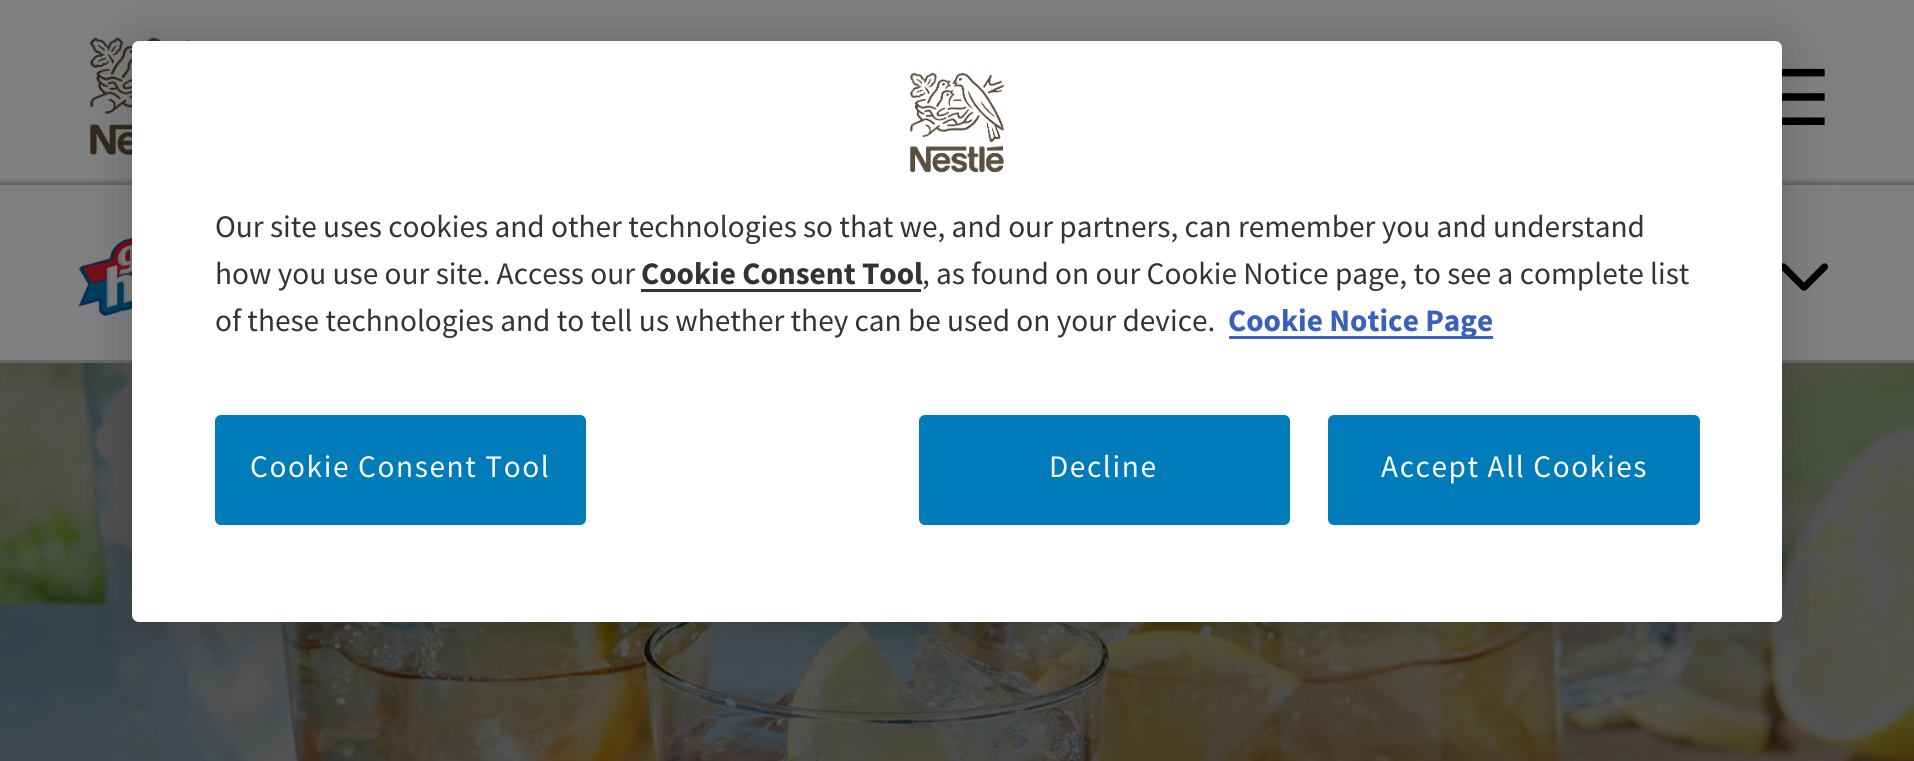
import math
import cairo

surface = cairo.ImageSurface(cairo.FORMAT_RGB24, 1914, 761)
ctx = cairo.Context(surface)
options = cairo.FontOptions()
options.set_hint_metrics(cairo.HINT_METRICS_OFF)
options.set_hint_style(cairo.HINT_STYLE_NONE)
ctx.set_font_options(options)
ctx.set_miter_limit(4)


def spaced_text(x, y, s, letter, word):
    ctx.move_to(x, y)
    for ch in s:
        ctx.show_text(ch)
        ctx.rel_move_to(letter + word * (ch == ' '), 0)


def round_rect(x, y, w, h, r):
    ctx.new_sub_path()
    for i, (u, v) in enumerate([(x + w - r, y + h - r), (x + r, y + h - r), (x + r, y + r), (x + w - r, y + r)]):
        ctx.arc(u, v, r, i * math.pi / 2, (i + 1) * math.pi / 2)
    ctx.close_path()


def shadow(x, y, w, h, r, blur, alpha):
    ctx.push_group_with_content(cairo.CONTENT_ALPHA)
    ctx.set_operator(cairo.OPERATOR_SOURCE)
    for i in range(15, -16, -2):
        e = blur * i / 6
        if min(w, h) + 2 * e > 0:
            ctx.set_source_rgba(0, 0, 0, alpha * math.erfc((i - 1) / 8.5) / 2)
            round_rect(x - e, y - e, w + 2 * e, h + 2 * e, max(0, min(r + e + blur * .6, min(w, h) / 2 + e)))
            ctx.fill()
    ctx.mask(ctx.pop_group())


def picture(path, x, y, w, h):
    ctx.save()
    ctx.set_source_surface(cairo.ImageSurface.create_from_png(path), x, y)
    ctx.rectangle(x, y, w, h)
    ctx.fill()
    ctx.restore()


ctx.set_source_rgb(0.502, 0.502, 0.502)
ctx.paint()
ctx.set_source_rgb(0.4, 0.4, 0.4)
ctx.rectangle(0, 182, 1914, 3)
ctx.fill()
ctx.set_source_rgb(0.463, 0.463, 0.463)
ctx.rectangle(0, 179, 1914, 3)
ctx.fill()
picture("img1.png", 90, 37, 101, 118)
ctx.select_font_face("DejaVu Sans")
ctx.set_font_size(77)
ctx.set_source_rgb(0, 0, 0)
ctx.move_to(1762, 125)
ctx.show_text("☰")
ctx.set_source_rgb(0.4, 0.4, 0.4)
ctx.rectangle(0, 360, 1914, 3)
ctx.fill()
picture("img2.png", 78, 236, 54, 80)
picture("img3.png", 1782, 263, 46, 28)
picture("img4.png", 0, 363, 1914, 398)
ctx.set_source_rgb(0, 0, 0)
shadow(132, 41, 1650, 581, 7, 25, 0.2)
ctx.set_source_rgb(1, 1, 1)
round_rect(132, 41, 1650, 581, 7)
ctx.fill()
picture("img5.png", 910, 72, 94, 101)
ctx.select_font_face("Source Sans Pro")
ctx.set_font_size(31.3)
ctx.set_source_rgb(0.2, 0.2, 0.2)
ctx.move_to(215, 237)
ctx.show_text("Our site uses cookies and other technologies so that we, and our partners, can remember you and understand")
ctx.move_to(215, 284)
ctx.show_text("how you use our site. Access our")
ctx.select_font_face("Source Sans Pro", cairo.FONT_SLANT_NORMAL, cairo.FONT_WEIGHT_BOLD)
ctx.move_to(641, 284)
ctx.show_text("Cookie Consent Tool")
ctx.rectangle(641, 289, 280, 3)
ctx.fill()
ctx.select_font_face("Source Sans Pro")
ctx.move_to(922, 284)
ctx.show_text(", as found on our Cookie Notice page, to see a complete list")
ctx.move_to(215, 331)
ctx.show_text("of these technologies and to tell us whether they can be used on your device.")
ctx.set_source_rgb(0.22, 0.376, 0.745)
ctx.rectangle(1229, 336, 264, 3)
ctx.fill()
ctx.select_font_face("Source Sans Pro", cairo.FONT_SLANT_NORMAL, cairo.FONT_WEIGHT_BOLD)
ctx.move_to(1228, 331)
ctx.show_text("Cookie Notice Page")
ctx.set_source_rgb(0, 0.486, 0.729)
round_rect(215, 415, 371, 110, 6)
ctx.fill()
ctx.select_font_face("Source Sans Pro")
ctx.set_source_rgb(1, 1, 1)
spaced_text(250, 477, "Cookie Consent Tool", 1.6, 0)
ctx.set_source_rgb(0, 0.486, 0.729)
round_rect(919, 415, 371, 110, 6)
ctx.fill()
ctx.set_source_rgb(1, 1, 1)
spaced_text(1049, 477, "Decline", 1.6, 0)
ctx.set_source_rgb(0, 0.486, 0.729)
round_rect(1328, 415, 372, 110, 6)
ctx.fill()
ctx.set_source_rgb(1, 1, 1)
spaced_text(1381, 477, "Accept All Cookies", 1.6, 0)
surface.write_to_png("page.png")
